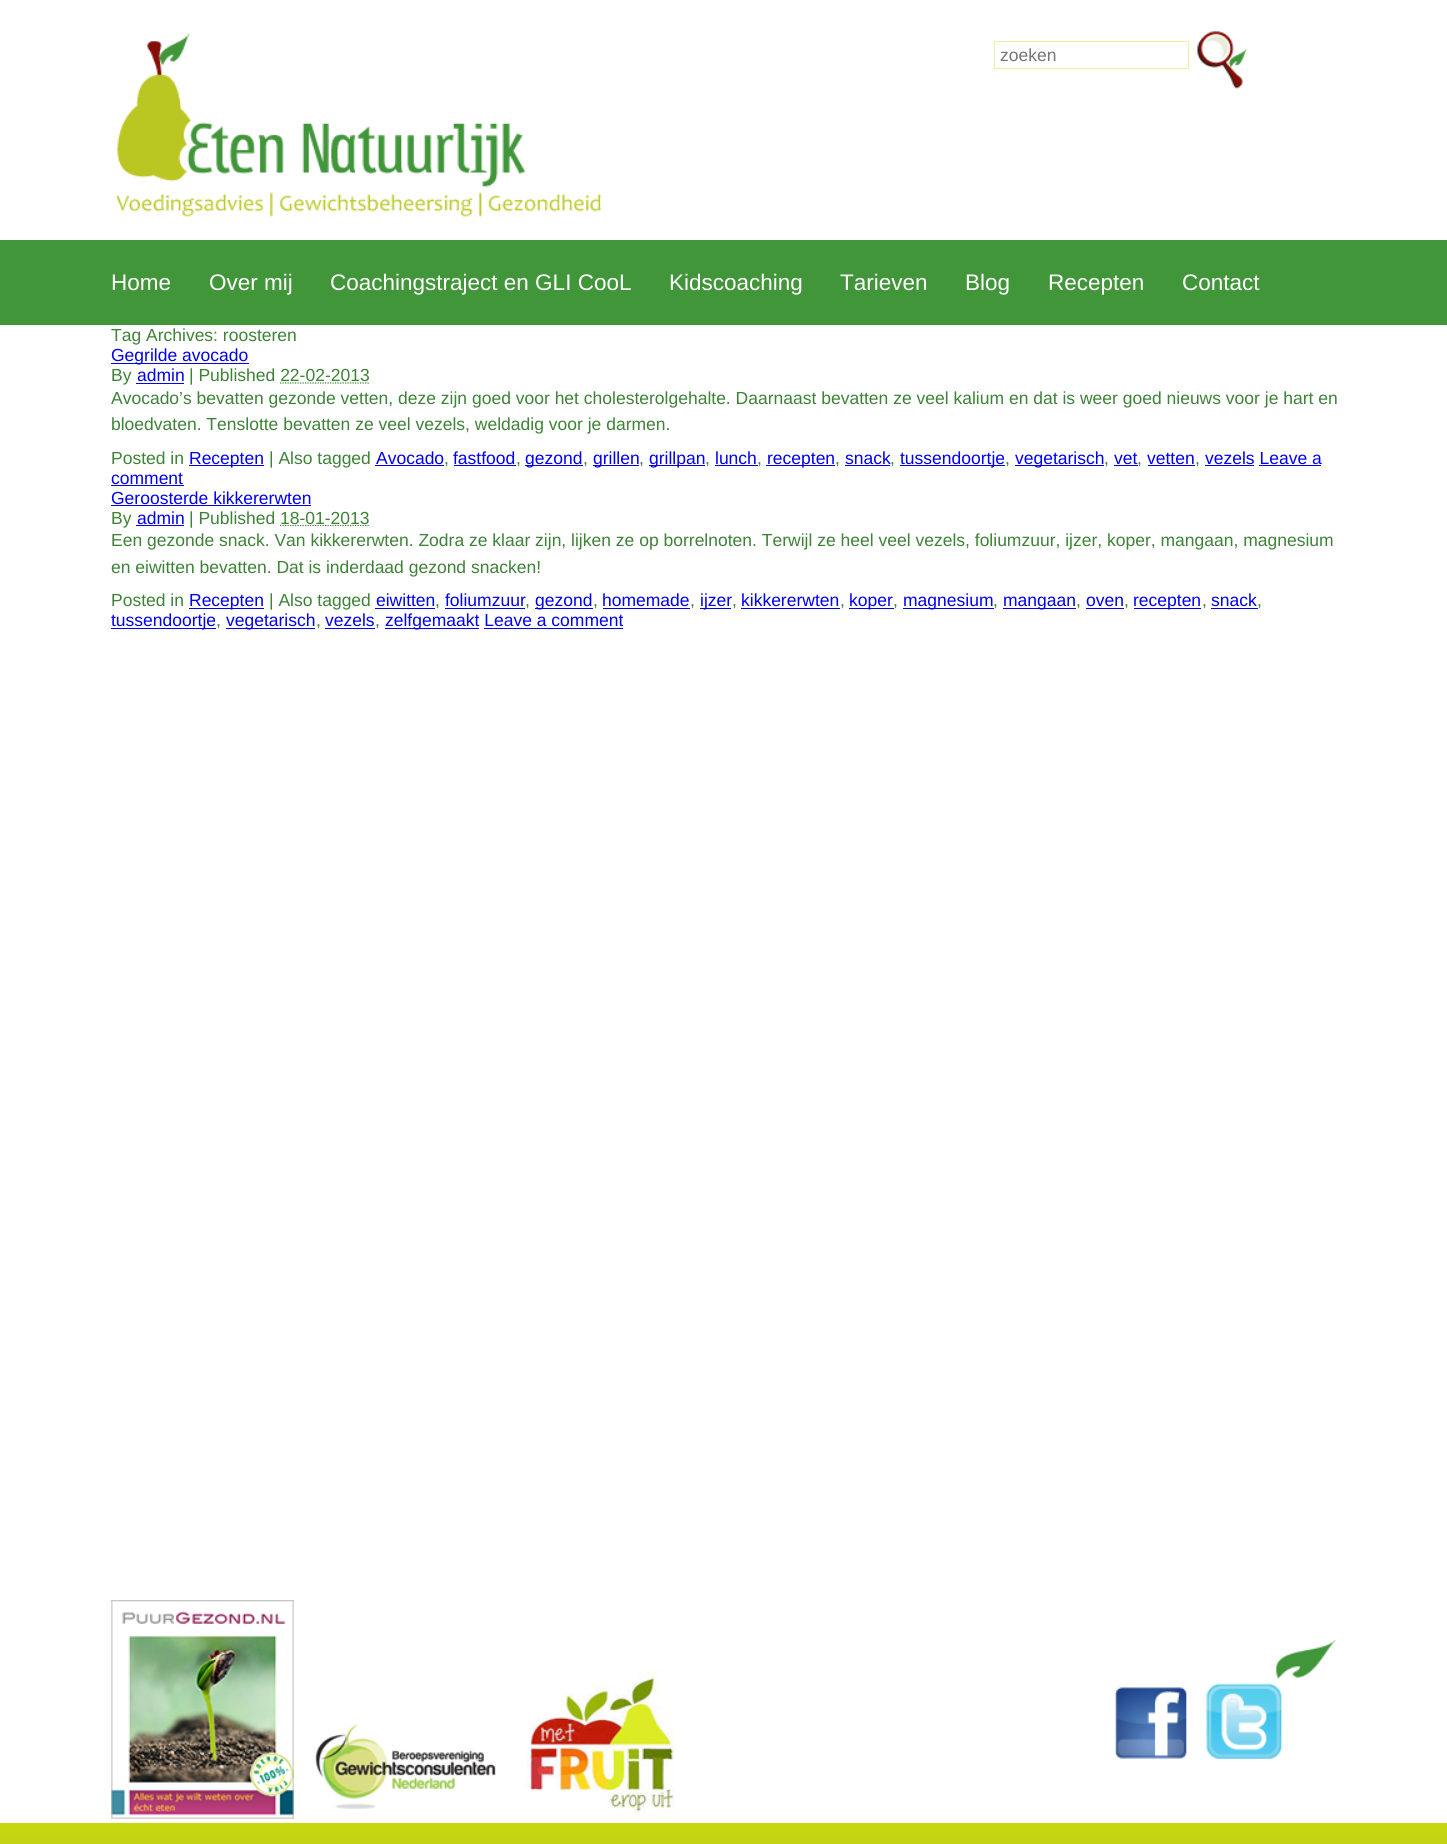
import math
import cairo

surface = cairo.ImageSurface(cairo.FORMAT_RGB24, 1447, 1844)
ctx = cairo.Context(surface)
options = cairo.FontOptions()
options.set_hint_metrics(cairo.HINT_METRICS_OFF)
options.set_hint_style(cairo.HINT_STYLE_NONE)
ctx.set_font_options(options)
ctx.set_miter_limit(4)


def picture(path, x, y, w, h):
    ctx.save()
    ctx.set_source_surface(cairo.ImageSurface.create_from_png(path), x, y)
    ctx.rectangle(x, y, w, h)
    ctx.fill()
    ctx.restore()


ctx.set_source_rgb(1, 1, 1)
ctx.paint()
picture("img1.png", 116, 33, 486, 184)
ctx.rectangle(994.5, 41.5, 194, 27)
ctx.set_source_rgb(0.922, 0.949, 0.62)
ctx.set_line_width(1)
ctx.stroke()
ctx.select_font_face("Liberation Sans")
ctx.set_font_size(17.5)
ctx.set_source_rgb(0.459, 0.459, 0.459)
ctx.move_to(1000, 61)
ctx.show_text("zoeken")
picture("img2.png", 1197, 31, 51, 58)
ctx.set_source_rgb(0.255, 0.588, 0.224)
ctx.rectangle(0, 240, 1447, 85)
ctx.fill()
ctx.set_font_size(22.5)
ctx.set_source_rgb(1, 1, 1)
ctx.move_to(111, 290)
ctx.show_text("Home")
ctx.move_to(209, 290)
ctx.show_text("Over mij")
ctx.move_to(330, 290)
ctx.show_text("Coachingstraject en GLI CooL")
ctx.move_to(669, 290)
ctx.show_text("Kidscoaching")
ctx.move_to(840, 290)
ctx.show_text("Tarieven")
ctx.move_to(965, 290)
ctx.show_text("Blog")
ctx.move_to(1048, 290)
ctx.show_text("Recepten")
ctx.move_to(1182, 290)
ctx.show_text("Contact")
ctx.set_font_size(17.5)
ctx.set_source_rgb(0.239, 0.51, 0.212)
ctx.move_to(111, 341)
ctx.show_text("Tag Archives: roosteren")
ctx.set_source_rgb(0, 0, 0.933)
ctx.rectangle(111, 363, 138, 1)
ctx.fill()
ctx.move_to(111, 361)
ctx.show_text("Gegrilde avocado")
ctx.set_source_rgb(0.239, 0.51, 0.212)
ctx.move_to(111, 381)
ctx.show_text("By")
ctx.set_source_rgb(0, 0, 0.933)
ctx.move_to(137, 381)
ctx.show_text("admin")
ctx.rectangle(136, 383, 48, 1)
ctx.fill()
ctx.set_source_rgb(0.239, 0.51, 0.212)
ctx.move_to(189, 381)
ctx.show_text("| Published 22-02-2013")
ctx.new_path()
ctx.move_to(280, 383)
ctx.line_to(370, 383)
ctx.set_line_width(1.2)
ctx.set_dash([1.25, 1.25])
ctx.stroke()
ctx.move_to(111, 404)
ctx.show_text("Avocado’s bevatten gezonde vetten, deze zijn goed voor het cholesterolgehalte. Daarnaast bevatten ze veel kalium en dat is weer goed nieuws voor je hart en")
ctx.move_to(111, 430)
ctx.show_text("bloedvaten. Tenslotte bevatten ze veel vezels, weldadig voor je darmen.")
ctx.move_to(111, 464)
ctx.show_text("Posted in")
ctx.set_source_rgb(0, 0, 0.933)
ctx.rectangle(189, 465, 75, 1)
ctx.fill()
ctx.move_to(189, 464)
ctx.show_text("Recepten")
ctx.set_source_rgb(0.239, 0.51, 0.212)
ctx.move_to(269, 464)
ctx.show_text("| Also tagged")
ctx.set_source_rgb(0, 0, 0.933)
ctx.move_to(376, 464)
ctx.show_text("Avocado")
ctx.set_source_rgb(0.239, 0.51, 0.212)
ctx.move_to(444, 464)
ctx.show_text(",")
ctx.set_source_rgb(0, 0, 0.933)
ctx.rectangle(375, 465, 69, 1)
ctx.fill()
ctx.move_to(453, 464)
ctx.show_text("fastfood")
ctx.set_source_rgb(0.239, 0.51, 0.212)
ctx.move_to(516, 464)
ctx.show_text(",")
ctx.set_source_rgb(0, 0, 0.933)
ctx.rectangle(454, 465, 62, 1)
ctx.fill()
ctx.rectangle(525, 465, 58, 1)
ctx.fill()
ctx.move_to(525, 464)
ctx.show_text("gezond")
ctx.set_source_rgb(0.239, 0.51, 0.212)
ctx.move_to(583, 464)
ctx.show_text(",")
ctx.set_source_rgb(0, 0, 0.933)
ctx.rectangle(593, 465, 46, 1)
ctx.fill()
ctx.move_to(593, 464)
ctx.show_text("grillen")
ctx.set_source_rgb(0.239, 0.51, 0.212)
ctx.move_to(639, 464)
ctx.show_text(",")
ctx.set_source_rgb(0, 0, 0.933)
ctx.rectangle(649, 465, 56, 1)
ctx.fill()
ctx.move_to(649, 464)
ctx.show_text("grillpan")
ctx.set_source_rgb(0.239, 0.51, 0.212)
ctx.move_to(705, 464)
ctx.show_text(",")
ctx.set_source_rgb(0, 0, 0.933)
ctx.move_to(715, 464)
ctx.show_text("lunch")
ctx.set_source_rgb(0.239, 0.51, 0.212)
ctx.move_to(757, 464)
ctx.show_text(",")
ctx.set_source_rgb(0, 0, 0.933)
ctx.rectangle(715, 465, 43, 1)
ctx.fill()
ctx.rectangle(766, 465, 69, 1)
ctx.fill()
ctx.move_to(767, 464)
ctx.show_text("recepten")
ctx.set_source_rgb(0.239, 0.51, 0.212)
ctx.move_to(835, 464)
ctx.show_text(",")
ctx.set_source_rgb(0, 0, 0.933)
ctx.move_to(845, 464)
ctx.show_text("snack")
ctx.set_source_rgb(0.239, 0.51, 0.212)
ctx.move_to(890, 464)
ctx.show_text(",")
ctx.set_source_rgb(0, 0, 0.933)
ctx.rectangle(845, 465, 45, 1)
ctx.fill()
ctx.rectangle(900, 465, 105, 1)
ctx.fill()
ctx.move_to(900, 464)
ctx.show_text("tussendoortje")
ctx.set_source_rgb(0.239, 0.51, 0.212)
ctx.move_to(1005, 464)
ctx.show_text(",")
ctx.set_source_rgb(0, 0, 0.933)
ctx.rectangle(1015, 465, 89, 1)
ctx.fill()
ctx.move_to(1015, 464)
ctx.show_text("vegetarisch")
ctx.set_source_rgb(0.239, 0.51, 0.212)
ctx.move_to(1104, 464)
ctx.show_text(",")
ctx.set_source_rgb(0, 0, 0.933)
ctx.move_to(1114, 464)
ctx.show_text("vet")
ctx.set_source_rgb(0.239, 0.51, 0.212)
ctx.move_to(1137, 464)
ctx.show_text(",")
ctx.set_source_rgb(0, 0, 0.933)
ctx.rectangle(1114, 465, 24, 1)
ctx.fill()
ctx.move_to(1147, 464)
ctx.show_text("vetten")
ctx.set_source_rgb(0.239, 0.51, 0.212)
ctx.move_to(1195, 464)
ctx.show_text(",")
ctx.set_source_rgb(0, 0, 0.933)
ctx.rectangle(1148, 465, 47, 1)
ctx.fill()
ctx.rectangle(1205, 465, 49, 1)
ctx.fill()
ctx.move_to(1205, 464)
ctx.show_text("vezels Leave a")
ctx.move_to(111, 484)
ctx.show_text("comment")
ctx.rectangle(1259, 465, 62, 1)
ctx.fill()
ctx.rectangle(111, 485, 73, 1)
ctx.fill()
ctx.move_to(111, 504)
ctx.show_text("Geroosterde kikkererwten")
ctx.rectangle(111, 505, 200, 1)
ctx.fill()
ctx.set_source_rgb(0.239, 0.51, 0.212)
ctx.move_to(111, 524)
ctx.show_text("By")
ctx.set_source_rgb(0, 0, 0.933)
ctx.move_to(137, 524)
ctx.show_text("admin")
ctx.rectangle(136, 525, 48, 1)
ctx.fill()
ctx.set_source_rgb(0.239, 0.51, 0.212)
ctx.move_to(189, 524)
ctx.show_text("| Published")
ctx.new_path()
ctx.move_to(280, 525.5)
ctx.line_to(370, 525.5)
ctx.stroke()
ctx.move_to(280, 524)
ctx.show_text("18-01-2013")
ctx.move_to(111, 546)
ctx.show_text("Een gezonde snack. Van kikkererwten. Zodra ze klaar zijn, lijken ze op borrelnoten. Terwijl ze heel veel vezels, foliumzuur, ijzer, koper, mangaan, magnesium")
ctx.move_to(111, 573)
ctx.show_text("en eiwitten bevatten. Dat is inderdaad gezond snacken!")
ctx.move_to(111, 606)
ctx.show_text("Posted in")
ctx.set_source_rgb(0, 0, 0.933)
ctx.rectangle(189, 608, 75, 1)
ctx.fill()
ctx.move_to(189, 606)
ctx.show_text("Recepten")
ctx.set_source_rgb(0.239, 0.51, 0.212)
ctx.move_to(269, 606)
ctx.show_text("| Also tagged")
ctx.set_source_rgb(0, 0, 0.933)
ctx.move_to(376, 606)
ctx.show_text("eiwitten")
ctx.set_source_rgb(0.239, 0.51, 0.212)
ctx.move_to(435, 606)
ctx.show_text(",")
ctx.set_source_rgb(0, 0, 0.933)
ctx.rectangle(375, 608, 60, 1)
ctx.fill()
ctx.move_to(445, 606)
ctx.show_text("foliumzuur")
ctx.set_source_rgb(0.239, 0.51, 0.212)
ctx.move_to(525, 606)
ctx.show_text(",")
ctx.set_source_rgb(0, 0, 0.933)
ctx.rectangle(445, 608, 80, 1)
ctx.fill()
ctx.rectangle(535, 608, 58, 1)
ctx.fill()
ctx.move_to(535, 606)
ctx.show_text("gezond")
ctx.set_source_rgb(0.239, 0.51, 0.212)
ctx.move_to(593, 606)
ctx.show_text(",")
ctx.set_source_rgb(0, 0, 0.933)
ctx.move_to(602, 606)
ctx.show_text("homemade")
ctx.set_source_rgb(0.239, 0.51, 0.212)
ctx.move_to(690, 606)
ctx.show_text(",")
ctx.set_source_rgb(0, 0, 0.933)
ctx.rectangle(603, 608, 87, 1)
ctx.fill()
ctx.rectangle(700, 608, 31, 1)
ctx.fill()
ctx.move_to(700, 606)
ctx.show_text("ijzer")
ctx.set_source_rgb(0.239, 0.51, 0.212)
ctx.move_to(732, 606)
ctx.show_text(",")
ctx.set_source_rgb(0, 0, 0.933)
ctx.move_to(741, 606)
ctx.show_text("kikkererwten")
ctx.set_source_rgb(0.239, 0.51, 0.212)
ctx.move_to(840, 606)
ctx.show_text(",")
ctx.set_source_rgb(0, 0, 0.933)
ctx.rectangle(741, 608, 99, 1)
ctx.fill()
ctx.rectangle(849, 608, 45, 1)
ctx.fill()
ctx.move_to(849, 606)
ctx.show_text("koper")
ctx.set_source_rgb(0.239, 0.51, 0.212)
ctx.move_to(893, 606)
ctx.show_text(",")
ctx.set_source_rgb(0, 0, 0.933)
ctx.rectangle(903, 608, 91, 1)
ctx.fill()
ctx.move_to(903, 606)
ctx.show_text("magnesium")
ctx.set_source_rgb(0.239, 0.51, 0.212)
ctx.move_to(993, 606)
ctx.show_text(",")
ctx.set_source_rgb(0, 0, 0.933)
ctx.rectangle(1003, 608, 73, 1)
ctx.fill()
ctx.move_to(1003, 606)
ctx.show_text("mangaan")
ctx.set_source_rgb(0.239, 0.51, 0.212)
ctx.move_to(1076, 606)
ctx.show_text(",")
ctx.set_source_rgb(0, 0, 0.933)
ctx.move_to(1086, 606)
ctx.show_text("oven")
ctx.set_source_rgb(0.239, 0.51, 0.212)
ctx.move_to(1124, 606)
ctx.show_text(",")
ctx.set_source_rgb(0, 0, 0.933)
ctx.rectangle(1086, 608, 38, 1)
ctx.fill()
ctx.rectangle(1134, 608, 67, 1)
ctx.fill()
ctx.move_to(1133, 606)
ctx.show_text("recepten")
ctx.set_source_rgb(0.239, 0.51, 0.212)
ctx.move_to(1202, 606)
ctx.show_text(",")
ctx.set_source_rgb(0, 0, 0.933)
ctx.move_to(1211, 606)
ctx.show_text("snack")
ctx.set_source_rgb(0.239, 0.51, 0.212)
ctx.move_to(1257, 606)
ctx.show_text(",")
ctx.set_source_rgb(0, 0, 0.933)
ctx.rectangle(1211, 608, 47, 1)
ctx.fill()
ctx.rectangle(111, 628, 105, 1)
ctx.fill()
ctx.move_to(111, 626)
ctx.show_text("tussendoortje")
ctx.set_source_rgb(0.239, 0.51, 0.212)
ctx.move_to(216, 626)
ctx.show_text(",")
ctx.set_source_rgb(0, 0, 0.933)
ctx.rectangle(226, 628, 89, 1)
ctx.fill()
ctx.move_to(226, 626)
ctx.show_text("vegetarisch")
ctx.set_source_rgb(0.239, 0.51, 0.212)
ctx.move_to(316, 626)
ctx.show_text(",")
ctx.set_source_rgb(0, 0, 0.933)
ctx.move_to(325, 626)
ctx.show_text("vezels")
ctx.set_source_rgb(0.239, 0.51, 0.212)
ctx.move_to(375, 626)
ctx.show_text(",")
ctx.set_source_rgb(0, 0, 0.933)
ctx.rectangle(325, 628, 50, 1)
ctx.fill()
ctx.rectangle(385, 628, 94, 1)
ctx.fill()
ctx.move_to(385, 626)
ctx.show_text("zelfgemaakt Leave a comment")
ctx.rectangle(484, 628, 139, 1)
ctx.fill()
picture("img3.png", 111, 1600, 183, 219)
picture("img4.png", 315, 1724, 181, 85)
picture("img5.png", 525, 1670, 150, 144)
picture("img6.png", 1115, 1687, 72, 72)
picture("img7.png", 1206, 1640, 131, 119)
gradient = cairo.LinearGradient(0, 1823, 0, 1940)
gradient.add_color_stop_rgba(0, 0.784, 0.847, 0.051, 1)
gradient.add_color_stop_rgba(1, 0.682, 0.725, 0.204, 1)
ctx.set_source(gradient)
ctx.rectangle(0, 1823, 1447, 21)
ctx.fill()
surface.write_to_png("page.png")
